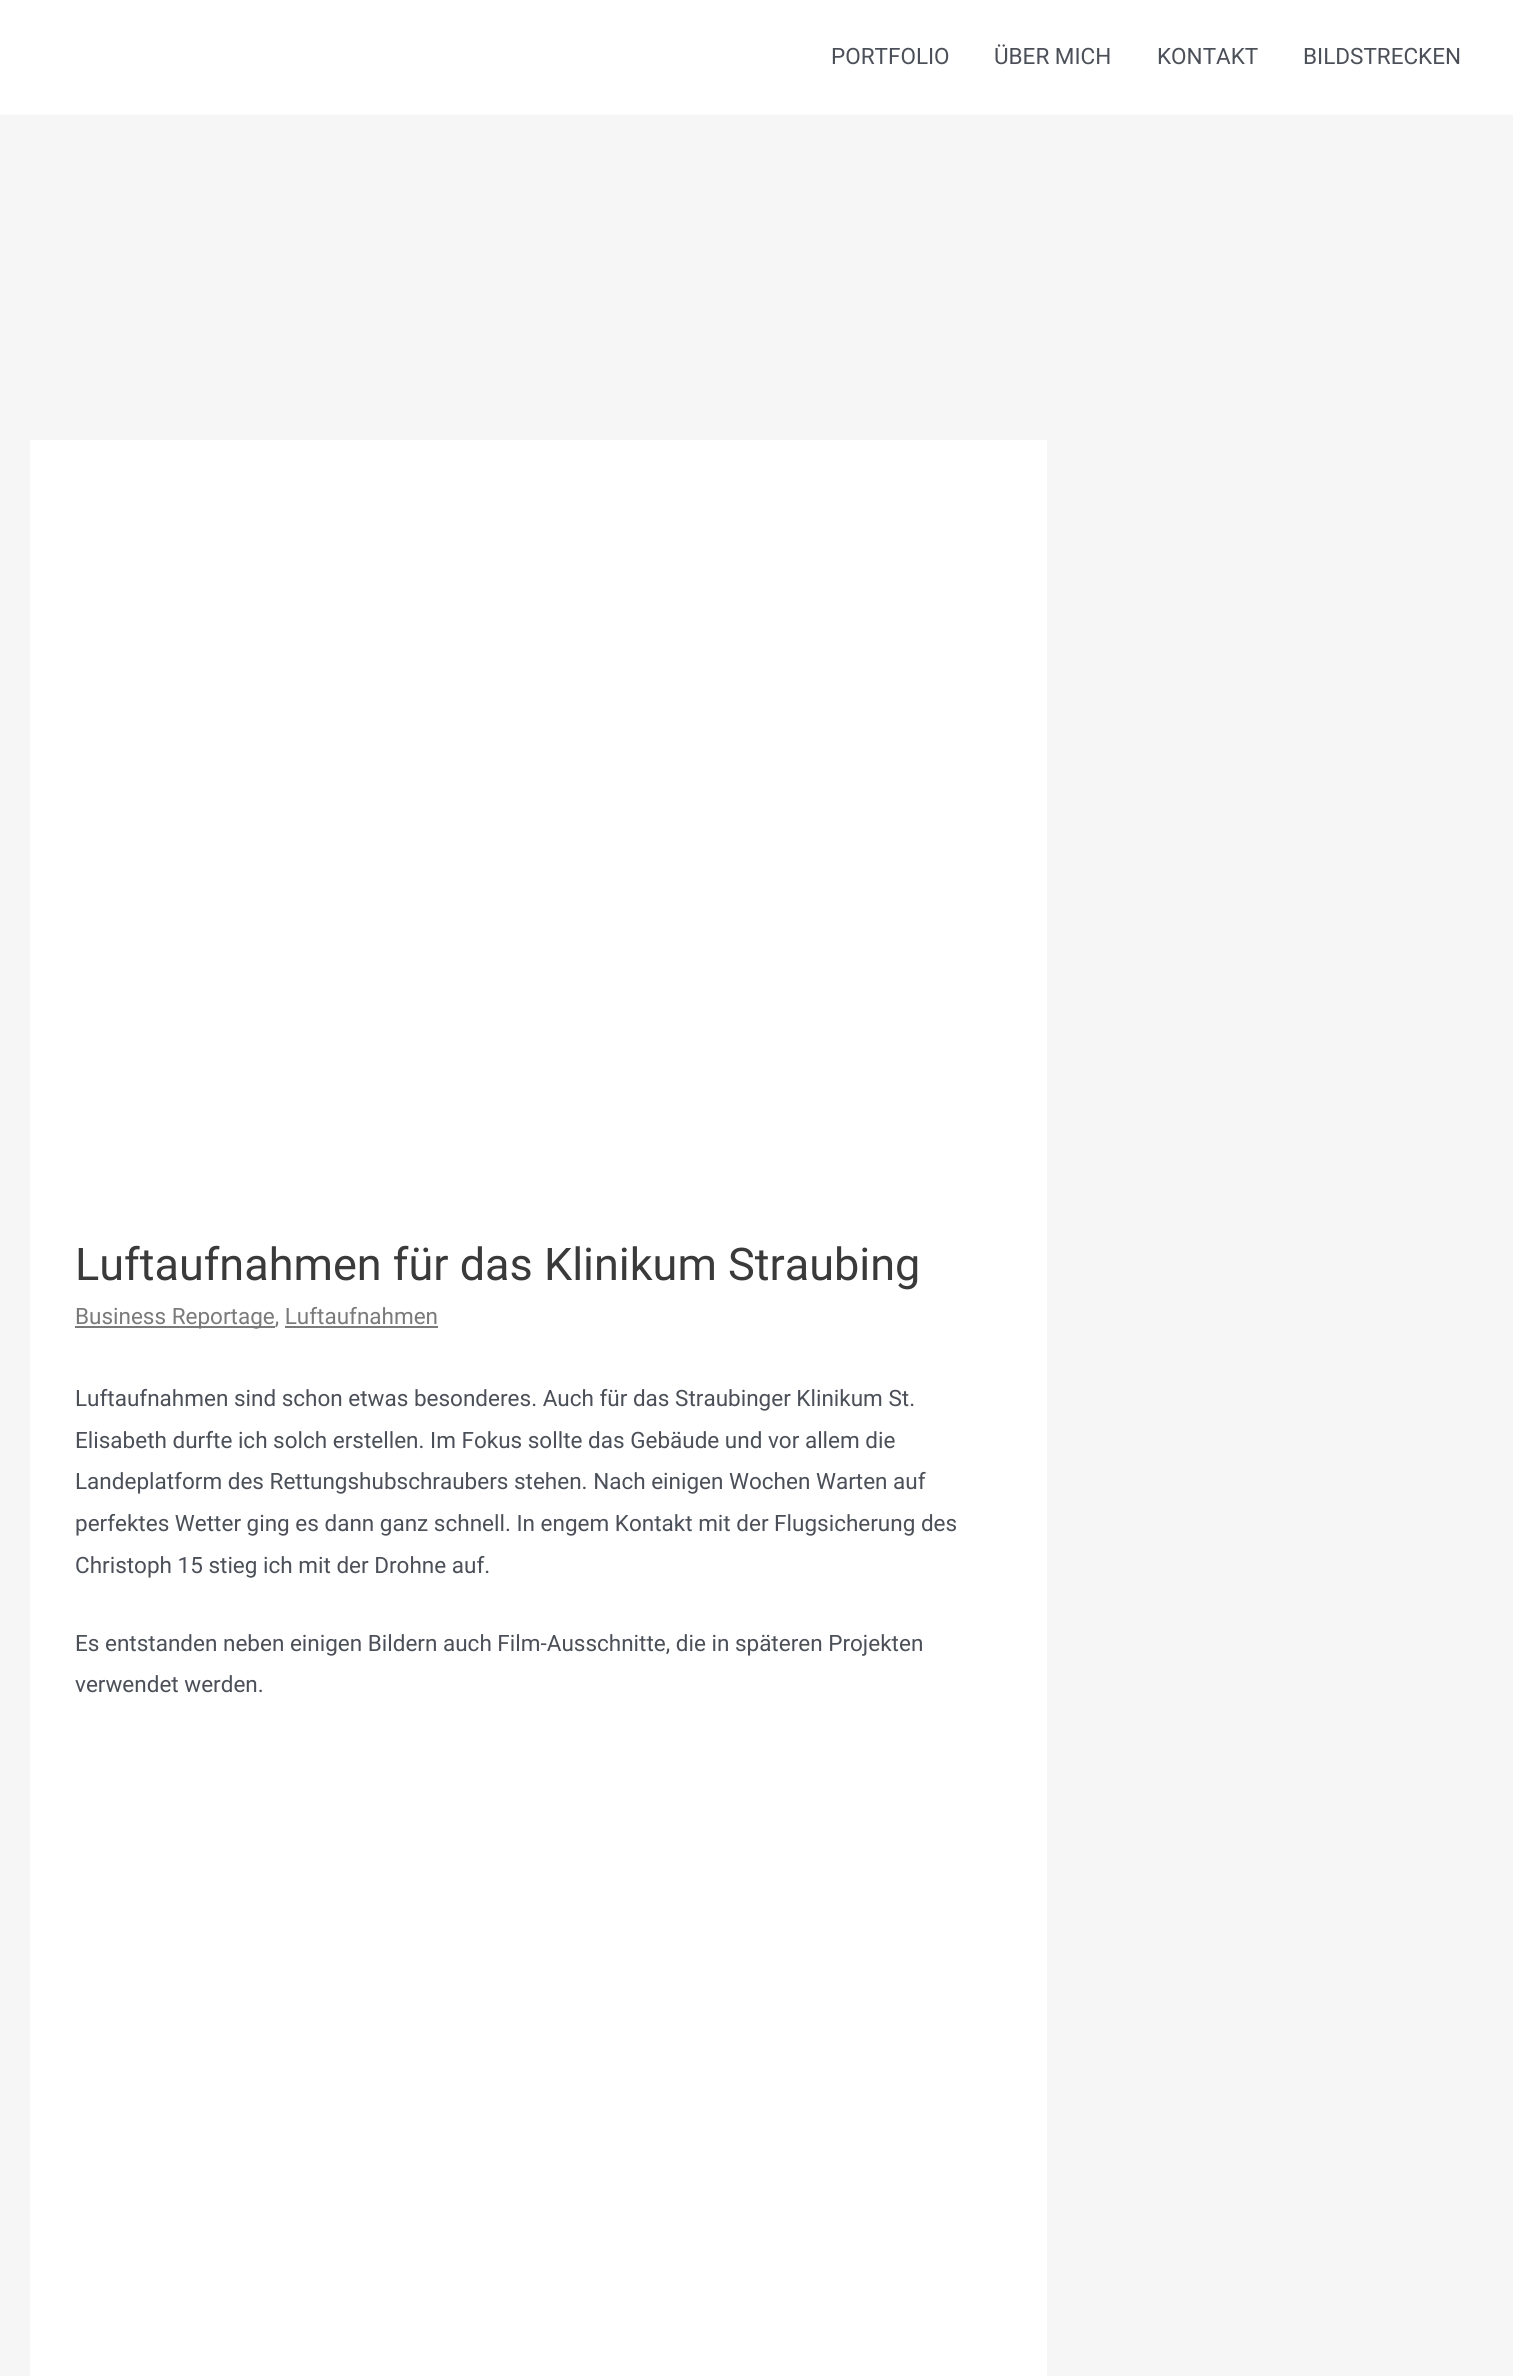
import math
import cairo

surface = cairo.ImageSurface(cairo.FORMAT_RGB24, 1513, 2376)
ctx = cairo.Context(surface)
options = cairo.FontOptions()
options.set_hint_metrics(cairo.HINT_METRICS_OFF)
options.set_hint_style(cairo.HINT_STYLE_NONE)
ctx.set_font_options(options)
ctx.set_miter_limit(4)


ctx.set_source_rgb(0.961, 0.961, 0.961)
ctx.paint()
ctx.set_source_rgb(0.984, 0.984, 0.984)
ctx.rectangle(0, 114, 1513, 1)
ctx.fill()
ctx.set_source_rgb(1, 1, 1)
ctx.rectangle(0, 0, 1513, 114)
ctx.fill()
ctx.select_font_face("Roboto")
ctx.set_font_size(22.5)
ctx.set_source_rgb(0.294, 0.31, 0.345)
ctx.move_to(831, 64)
ctx.show_text("PORTFOLIO")
ctx.move_to(994, 64)
ctx.show_text("ÜBER MICH")
ctx.move_to(1157, 64)
ctx.show_text("KONTAKT")
ctx.move_to(1303, 64)
ctx.show_text("BILDSTRECKEN")
ctx.set_source_rgb(1, 1, 1)
ctx.rectangle(30, 440, 1017, 1936)
ctx.fill()
ctx.set_font_size(45)
ctx.set_source_rgb(0.227, 0.227, 0.227)
ctx.move_to(75, 1280)
ctx.show_text("Luftaufnahmen für das Klinikum Straubing")
ctx.set_source_rgb(0.478, 0.478, 0.478)
ctx.rectangle(75, 1326, 200, 2)
ctx.fill()
ctx.set_font_size(22.5)
ctx.move_to(75, 1324)
ctx.show_text("Business Reportage, Luftaufnahmen")
ctx.rectangle(285, 1326, 153, 2)
ctx.fill()
ctx.set_source_rgb(0.294, 0.31, 0.345)
ctx.move_to(75, 1406)
ctx.show_text("Luftaufnahmen sind schon etwas besonderes. Auch für das Straubinger Klinikum St.")
ctx.move_to(75, 1448)
ctx.show_text("Elisabeth durfte ich solch erstellen. Im Fokus sollte das Gebäude und vor allem die")
ctx.move_to(75, 1489)
ctx.show_text("Landeplatform des Rettungshubschraubers stehen. Nach einigen Wochen Warten auf")
ctx.move_to(75, 1531)
ctx.show_text("perfektes Wetter ging es dann ganz schnell. In engem Kontakt mit der Flugsicherung des")
ctx.move_to(75, 1573)
ctx.show_text("Christoph 15 stieg ich mit der Drohne auf.")
ctx.move_to(75, 1651)
ctx.show_text("Es entstanden neben einigen Bildern auch Film-Ausschnitte, die in späteren Projekten")
ctx.move_to(75, 1692)
ctx.show_text("verwendet werden.")
surface.write_to_png("page.png")
